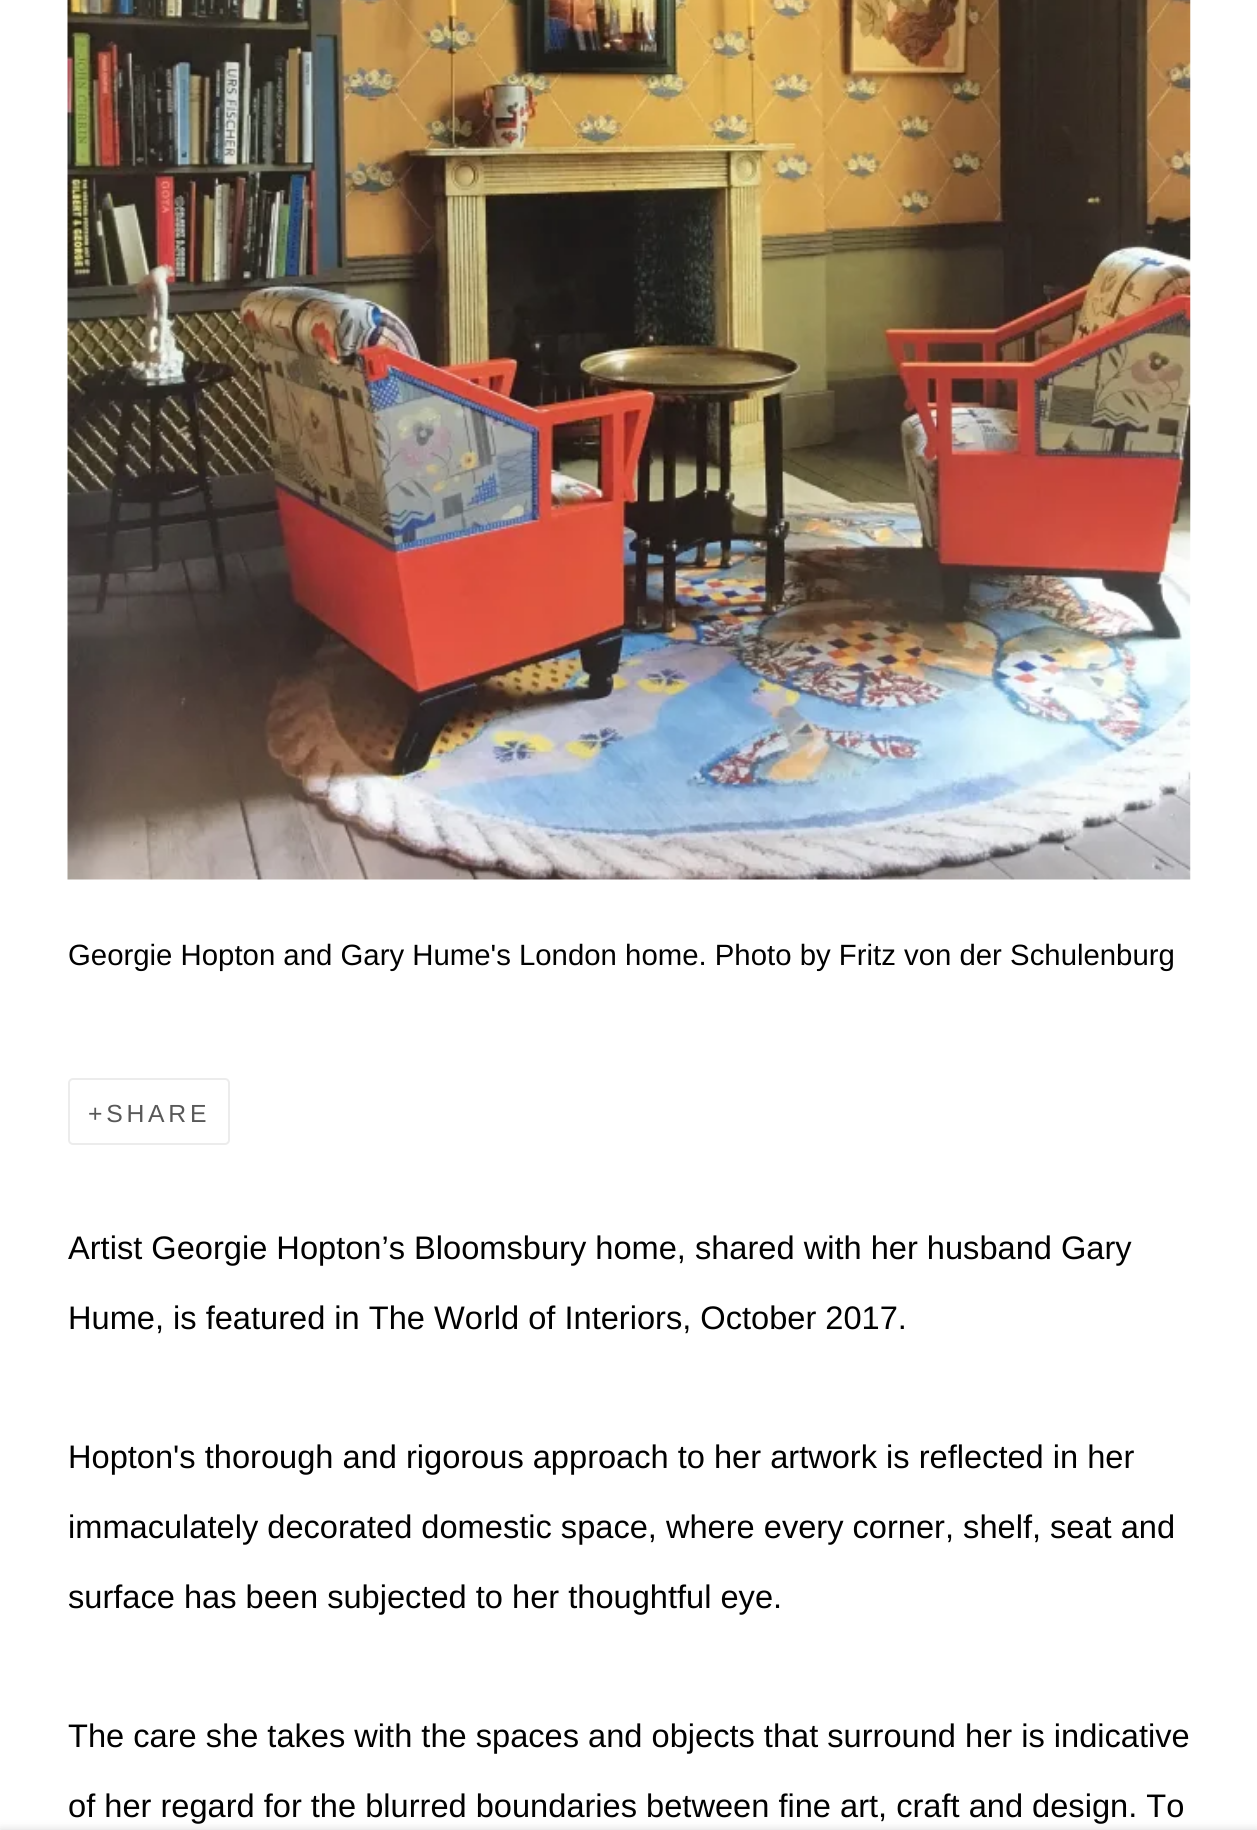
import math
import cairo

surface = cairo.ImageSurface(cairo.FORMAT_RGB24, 1257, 1830)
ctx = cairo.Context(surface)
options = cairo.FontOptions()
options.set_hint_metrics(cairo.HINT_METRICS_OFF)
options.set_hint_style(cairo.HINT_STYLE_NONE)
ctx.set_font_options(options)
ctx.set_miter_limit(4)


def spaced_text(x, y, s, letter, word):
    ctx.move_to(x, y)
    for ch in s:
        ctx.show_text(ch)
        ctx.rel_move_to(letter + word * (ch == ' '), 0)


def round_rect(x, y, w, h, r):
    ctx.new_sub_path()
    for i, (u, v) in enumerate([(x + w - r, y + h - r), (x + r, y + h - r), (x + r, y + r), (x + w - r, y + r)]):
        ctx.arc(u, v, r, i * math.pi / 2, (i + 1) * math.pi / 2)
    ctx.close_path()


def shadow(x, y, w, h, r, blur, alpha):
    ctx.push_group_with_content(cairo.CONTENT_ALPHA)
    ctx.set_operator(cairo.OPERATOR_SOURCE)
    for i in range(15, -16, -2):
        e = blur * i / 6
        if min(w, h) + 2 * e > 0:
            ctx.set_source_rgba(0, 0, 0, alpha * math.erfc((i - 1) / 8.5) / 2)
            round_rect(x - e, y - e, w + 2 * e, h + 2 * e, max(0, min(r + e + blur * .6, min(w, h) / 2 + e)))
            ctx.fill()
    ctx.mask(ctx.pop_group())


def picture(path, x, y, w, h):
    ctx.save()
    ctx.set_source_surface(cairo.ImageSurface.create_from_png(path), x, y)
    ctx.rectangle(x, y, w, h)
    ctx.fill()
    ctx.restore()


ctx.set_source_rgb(1, 1, 1)
ctx.paint()
picture("img1.png", 67, 0, 1124, 880)
ctx.select_font_face("Liberation Sans")
ctx.set_font_size(29.35)
ctx.set_source_rgb(0.004, 0.004, 0.004)
ctx.move_to(68, 965)
ctx.show_text("Georgie Hopton and Gary Hume's London home. Photo by Fritz von der Schulenburg")
round_rect(69, 1079, 160, 65, 4)
ctx.set_source_rgb(0.922, 0.922, 0.922)
ctx.stroke()
ctx.set_font_size(24.75)
ctx.set_source_rgb(0.345, 0.345, 0.345)
spaced_text(88, 1122, "+SHARE", 3.75, 0)
ctx.set_font_size(32.6)
ctx.set_source_rgb(0.004, 0.004, 0.004)
ctx.move_to(68, 1259)
ctx.show_text("Artist Georgie Hopton’s Bloomsbury home, shared with her husband Gary")
ctx.move_to(68, 1329)
ctx.show_text("Hume, is featured in The World of Interiors, October 2017.")
ctx.move_to(68, 1468)
ctx.show_text("Hopton's thorough and rigorous approach to her artwork is reflected in her")
ctx.move_to(68, 1538)
ctx.show_text("immaculately decorated domestic space, where every corner, shelf, seat and")
ctx.move_to(68, 1608)
ctx.show_text("surface has been subjected to her thoughtful eye.")
ctx.move_to(68, 1747)
ctx.show_text("The care she takes with the spaces and objects that surround her is indicative")
ctx.move_to(68, 1817)
ctx.show_text("of her regard for the blurred boundaries between fine art, craft and design. To")
ctx.set_source_rgb(0, 0, 0)
shadow(0, 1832, 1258, 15, 0, 5.5, 0.23)
surface.write_to_png("page.png")
